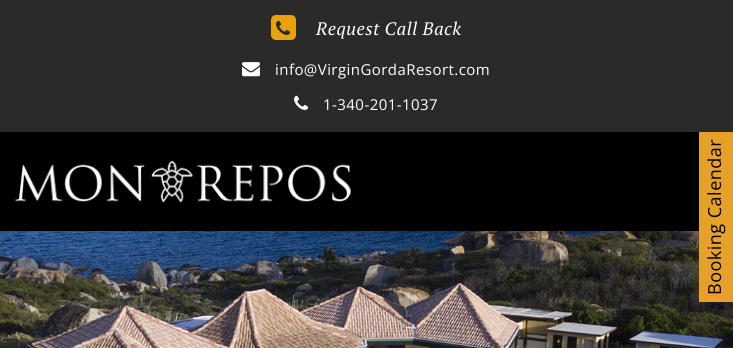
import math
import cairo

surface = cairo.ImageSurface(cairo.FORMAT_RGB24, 733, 348)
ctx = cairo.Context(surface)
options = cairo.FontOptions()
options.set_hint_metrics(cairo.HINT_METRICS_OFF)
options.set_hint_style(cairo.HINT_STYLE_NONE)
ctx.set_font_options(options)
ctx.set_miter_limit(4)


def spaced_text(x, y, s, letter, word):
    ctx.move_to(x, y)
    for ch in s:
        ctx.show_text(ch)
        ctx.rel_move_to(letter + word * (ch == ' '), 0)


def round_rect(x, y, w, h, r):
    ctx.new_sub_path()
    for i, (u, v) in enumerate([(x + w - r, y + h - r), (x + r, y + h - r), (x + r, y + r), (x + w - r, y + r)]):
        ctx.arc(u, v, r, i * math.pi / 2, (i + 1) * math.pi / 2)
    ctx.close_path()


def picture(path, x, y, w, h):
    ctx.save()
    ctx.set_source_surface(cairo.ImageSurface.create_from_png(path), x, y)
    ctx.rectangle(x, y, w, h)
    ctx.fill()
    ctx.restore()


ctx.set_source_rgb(0.165, 0.165, 0.165)
ctx.paint()
ctx.set_source_rgb(0.91, 0.635, 0.047)
round_rect(271, 15, 25, 25, 5)
ctx.fill()
picture("img1.png", 276, 20, 15, 15)
ctx.select_font_face("PT Serif", cairo.FONT_SLANT_ITALIC)
ctx.set_font_size(18)
ctx.set_source_rgb(1, 1, 1)
spaced_text(316, 35, "Request Call Back", 0.5, 0)
picture("img2.png", 242, 62, 18, 15)
ctx.select_font_face("Open Sans")
ctx.set_font_size(15)
spaced_text(275, 75, "info@VirginGordaResort.com", 0.45, 0)
picture("img3.png", 294, 95, 15, 15)
spaced_text(323, 110, "1-340-201-1037", 0.45, 0)
ctx.set_source_rgb(0, 0, 0)
ctx.rectangle(0, 132, 699, 99)
ctx.fill()
picture("img4.png", 15, 160, 336, 43)
picture("img5.png", 0, 231, 733, 117)
ctx.set_source_rgb(0.902, 0.631, 0.161)
ctx.rectangle(699, 132, 34, 170)
ctx.fill()
ctx.set_font_size(18)
ctx.set_source_rgb(0, 0, 0)
ctx.save()
ctx.translate(721, 295)
ctx.rotate(-90 * math.pi / 180)
spaced_text(0, 0, "Booking Calendar", 0.5, 0)
ctx.restore()
surface.write_to_png("page.png")
